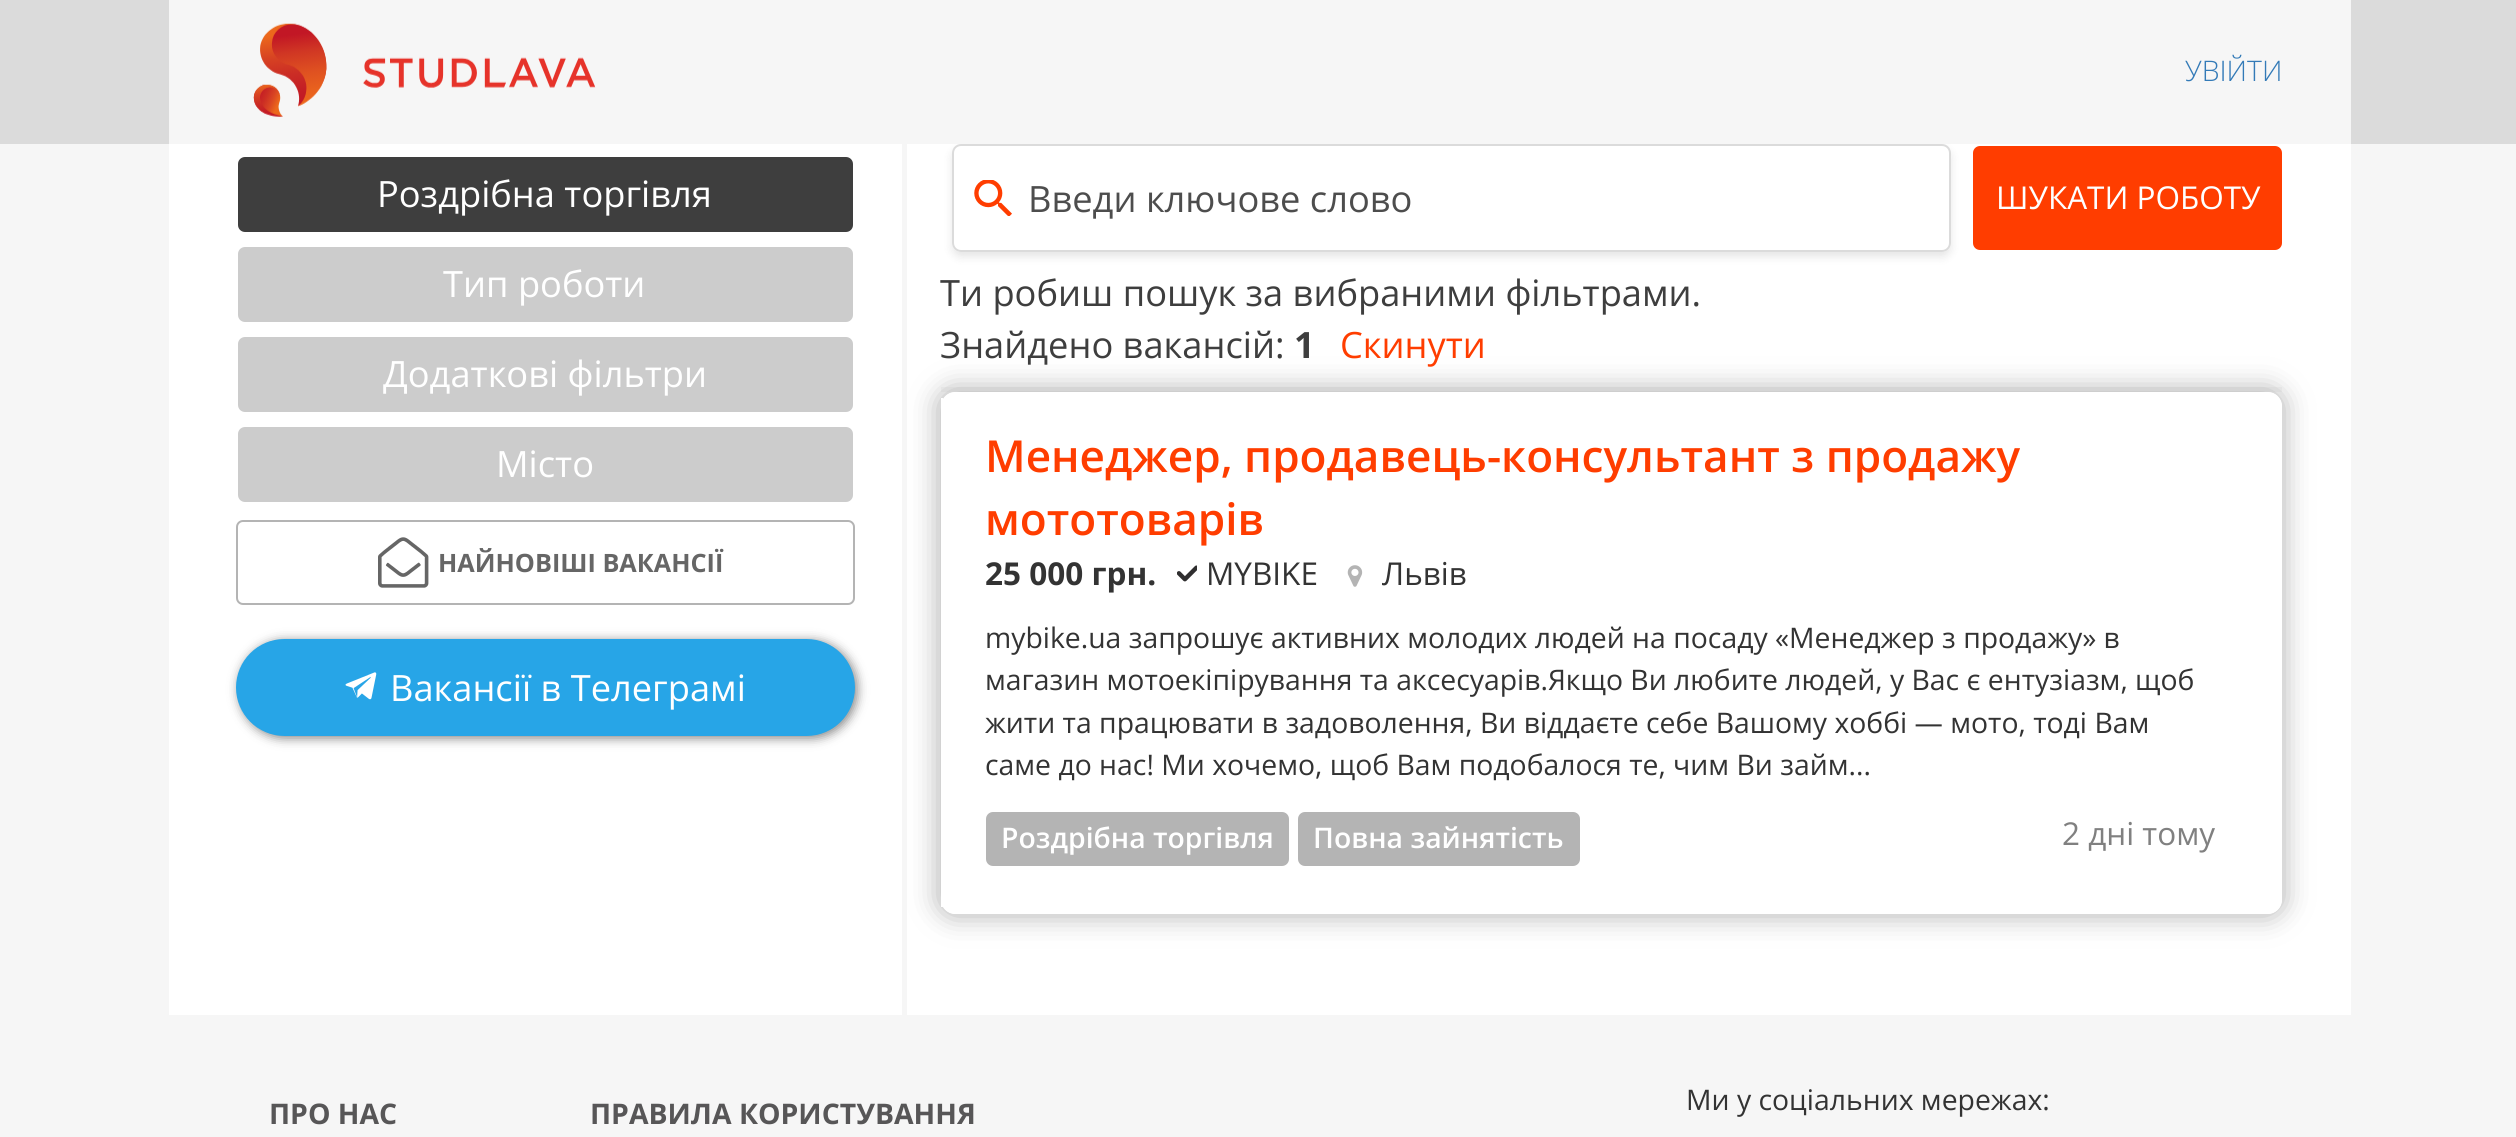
import math
import cairo

surface = cairo.ImageSurface(cairo.FORMAT_RGB24, 2516, 1137)
ctx = cairo.Context(surface)
options = cairo.FontOptions()
options.set_hint_metrics(cairo.HINT_METRICS_OFF)
options.set_hint_style(cairo.HINT_STYLE_NONE)
ctx.set_font_options(options)
ctx.set_miter_limit(4)


def round_rect(x, y, w, h, r):
    ctx.new_sub_path()
    for i, (u, v) in enumerate([(x + w - r, y + h - r), (x + r, y + h - r), (x + r, y + r), (x + w - r, y + r)]):
        ctx.arc(u, v, r, i * math.pi / 2, (i + 1) * math.pi / 2)
    ctx.close_path()


def shadow(x, y, w, h, r, blur, alpha):
    ctx.push_group_with_content(cairo.CONTENT_ALPHA)
    ctx.set_operator(cairo.OPERATOR_SOURCE)
    for i in range(15, -16, -2):
        e = blur * i / 6
        if min(w, h) + 2 * e > 0:
            ctx.set_source_rgba(0, 0, 0, alpha * math.erfc((i - 1) / 8.5) / 2)
            round_rect(x - e, y - e, w + 2 * e, h + 2 * e, max(0, min(r + e + blur * .6, min(w, h) / 2 + e)))
            ctx.fill()
    ctx.mask(ctx.pop_group())


def picture(path, x, y, w, h):
    ctx.save()
    ctx.set_source_surface(cairo.ImageSurface.create_from_png(path), x, y)
    ctx.rectangle(x, y, w, h)
    ctx.fill()
    ctx.restore()


ctx.set_source_rgb(0.961, 0.961, 0.961)
ctx.paint()
ctx.set_source_rgb(1, 1, 1)
ctx.rectangle(169, 144, 2182, 871)
ctx.fill()
ctx.save()
ctx.set_fill_rule(cairo.FILL_RULE_EVEN_ODD)
ctx.new_path()
ctx.move_to(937, 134)
ctx.line_to(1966, 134)
ctx.line_to(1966, 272)
ctx.line_to(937, 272)
ctx.close_path()
ctx.move_to(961, 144)
ctx.line_to(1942, 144)
ctx.curve_to(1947, 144, 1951, 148, 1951, 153)
ctx.line_to(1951, 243)
ctx.curve_to(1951, 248, 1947, 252, 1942, 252)
ctx.line_to(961, 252)
ctx.curve_to(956, 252, 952, 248, 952, 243)
ctx.line_to(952, 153)
ctx.curve_to(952, 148, 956, 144, 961, 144)
ctx.close_path()
ctx.clip()
ctx.set_source_rgb(0, 0, 0)
shadow(952, 149, 999, 108, 9, 4.5, 0.1)
ctx.restore()
ctx.set_source_rgb(0.859, 0.859, 0.859)
ctx.rectangle(0, 0, 2516, 144)
ctx.fill()
ctx.set_source_rgb(0.961, 0.961, 0.961)
ctx.rectangle(169, 0, 2182, 144)
ctx.fill()
picture("img1.png", 253, 23, 74, 94)
picture("img2.png", 363, 57, 233, 31)
ctx.select_font_face("Open Sans Light")
ctx.set_font_size(28.35)
ctx.set_source_rgb(0.2, 0.478, 0.718)
ctx.move_to(2185, 81)
ctx.show_text("УВІЙТИ")
ctx.set_source_rgb(0.961, 0.961, 0.961)
ctx.rectangle(941, 387, 1341, 5)
ctx.fill()
ctx.save()
ctx.set_fill_rule(cairo.FILL_RULE_EVEN_ODD)
ctx.new_path()
ctx.move_to(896, 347)
ctx.line_to(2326, 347)
ctx.line_to(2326, 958)
ctx.line_to(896, 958)
ctx.close_path()
ctx.move_to(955, 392)
ctx.line_to(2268, 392)
ctx.curve_to(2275.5, 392, 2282, 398.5, 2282, 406)
ctx.line_to(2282, 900)
ctx.curve_to(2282, 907.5, 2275.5, 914, 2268, 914)
ctx.line_to(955, 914)
ctx.curve_to(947.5, 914, 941, 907.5, 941, 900)
ctx.line_to(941, 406)
ctx.curve_to(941, 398.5, 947.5, 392, 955, 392)
ctx.close_path()
ctx.clip()
ctx.set_source_rgb(0.706, 0.706, 0.706)
shadow(938, 389, 1346, 527, 16, 13.5, 1)
ctx.restore()
ctx.rectangle(902, 144, 5, 871)
ctx.fill()
ctx.set_source_rgb(0.243, 0.243, 0.243)
round_rect(237, 156, 617, 77, 8)
ctx.fill_preserve()
ctx.set_source_rgb(1, 1, 1)
ctx.stroke()
ctx.select_font_face("Open Sans")
ctx.set_font_size(36.25)
ctx.move_to(377, 207)
ctx.show_text("Роздрібна торгівля")
ctx.set_source_rgb(0.8, 0.8, 0.8)
round_rect(237, 246, 617, 77, 8)
ctx.fill_preserve()
ctx.set_source_rgb(1, 1, 1)
ctx.stroke()
ctx.move_to(443, 297)
ctx.show_text("Тип роботи")
ctx.set_source_rgb(0.8, 0.8, 0.8)
round_rect(237, 336, 617, 77, 8)
ctx.fill_preserve()
ctx.set_source_rgb(1, 1, 1)
ctx.stroke()
ctx.move_to(383, 387)
ctx.show_text("Додаткові фільтри")
ctx.set_source_rgb(0.8, 0.8, 0.8)
round_rect(237, 426, 617, 77, 8)
ctx.fill_preserve()
ctx.set_source_rgb(1, 1, 1)
ctx.stroke()
ctx.move_to(496, 477)
ctx.show_text("Місто")
round_rect(237, 521, 617, 83, 6)
ctx.set_source_rgb(0.706, 0.706, 0.706)
ctx.stroke()
picture("img3.png", 378, 537, 51, 51)
ctx.select_font_face("Open Sans", cairo.FONT_SLANT_NORMAL, cairo.FONT_WEIGHT_BOLD)
ctx.set_font_size(25.25)
ctx.set_source_rgb(0.4, 0.4, 0.4)
ctx.move_to(438, 572)
ctx.show_text("НАЙНОВІШІ ВАКАНСІЇ")
ctx.set_source_rgb(0, 0, 0)
shadow(239, 641, 618, 97, 48.5, 5.5, 0.5)
ctx.set_source_rgb(0.153, 0.647, 0.906)
round_rect(236, 639, 619, 97, 48.5)
ctx.fill()
picture("img4.png", 345, 672, 32, 28)
ctx.select_font_face("Open Sans")
ctx.set_font_size(36.25)
ctx.set_source_rgb(1, 1, 1)
ctx.move_to(390, 701)
ctx.show_text("Вакансії в Телеграмі")
round_rect(953, 145, 997, 106, 8)
ctx.set_source_rgb(0.859, 0.859, 0.859)
ctx.stroke()
picture("img5.png", 974, 180, 38, 36)
ctx.set_source_rgb(0.302, 0.302, 0.302)
ctx.move_to(1028, 212)
ctx.show_text("Введи ключове слово")
ctx.set_source_rgb(1, 0.239, 0)
round_rect(1973, 146, 309, 104, 7)
ctx.fill()
ctx.set_font_size(31.5)
ctx.set_source_rgb(1, 1, 1)
ctx.move_to(1996, 209)
ctx.show_text("ШУКАТИ РОБОТУ")
ctx.set_font_size(36.25)
ctx.set_source_rgb(0.243, 0.243, 0.243)
ctx.move_to(940, 306)
ctx.show_text("Ти робиш пошук за вибраними фільтрами.")
ctx.move_to(940, 358)
ctx.show_text("Знайдено вакансій:")
ctx.select_font_face("Open Sans", cairo.FONT_SLANT_NORMAL, cairo.FONT_WEIGHT_BOLD)
ctx.move_to(1294, 358)
ctx.show_text("1")
ctx.select_font_face("Open Sans")
ctx.set_source_rgb(1, 0.239, 0)
ctx.move_to(1340, 358)
ctx.show_text("Скинути")
ctx.set_source_rgb(1, 1, 1)
ctx.rectangle(941, 398, 2, 509)
ctx.fill()
ctx.select_font_face("Open Sans SemiBold")
ctx.set_font_size(44.1)
ctx.set_source_rgb(1, 0.239, 0)
ctx.move_to(985, 472)
ctx.show_text("Менеджер, продавець-консультант з продажу")
ctx.move_to(985, 535)
ctx.show_text("мототоварів")
ctx.select_font_face("Open Sans", cairo.FONT_SLANT_NORMAL, cairo.FONT_WEIGHT_BOLD)
ctx.set_font_size(31.5)
ctx.set_source_rgb(0.2, 0.2, 0.2)
ctx.move_to(985, 585)
ctx.show_text("25 000 грн.")
picture("img6.png", 1177, 565, 20, 17)
ctx.select_font_face("Open Sans")
ctx.move_to(1206, 585)
ctx.show_text("MYBIKE")
picture("img7.png", 1347, 565, 16, 22)
ctx.move_to(1382, 585)
ctx.show_text("Львів")
ctx.set_font_size(28.35)
ctx.move_to(985, 648)
ctx.show_text("mybike.ua запрошує активних молодих людей на посаду «Менеджер з продажу» в")
ctx.move_to(985, 690)
ctx.show_text("магазин мотоекіпірування та аксесуарів.Якщо Ви любите людей, у Вас є ентузіазм, щоб")
ctx.move_to(985, 733)
ctx.show_text("жити та працювати в задоволення, Ви віддаєте себе Вашому хоббі — мото, тоді Вам")
ctx.move_to(985, 775)
ctx.show_text("саме до нас! Ми хочемо, щоб Вам подобалося те, чим Ви займ...")
ctx.set_source_rgb(0.706, 0.706, 0.706)
round_rect(986, 812, 303, 54, 7)
ctx.fill()
ctx.select_font_face("Open Sans SemiBold")
ctx.set_source_rgb(1, 1, 1)
ctx.move_to(1001, 848)
ctx.show_text("Роздрібна торгівля")
ctx.set_source_rgb(0.706, 0.706, 0.706)
round_rect(1298, 812, 282, 54, 7)
ctx.fill()
ctx.set_source_rgb(1, 1, 1)
ctx.move_to(1313, 848)
ctx.show_text("Повна зайнятість")
ctx.select_font_face("Open Sans")
ctx.set_font_size(31.5)
ctx.set_source_rgb(0.502, 0.502, 0.502)
ctx.move_to(2062, 845)
ctx.show_text("2 дні тому")
ctx.select_font_face("Open Sans", cairo.FONT_SLANT_NORMAL, cairo.FONT_WEIGHT_BOLD)
ctx.set_font_size(28.35)
ctx.set_source_rgb(0.341, 0.337, 0.341)
ctx.move_to(269, 1124)
ctx.show_text("ПРО НАС")
ctx.move_to(590, 1124)
ctx.show_text("ПРАВИЛА КОРИСТУВАННЯ")
ctx.select_font_face("Open Sans")
ctx.set_source_rgb(0.2, 0.2, 0.2)
ctx.move_to(1686, 1110)
ctx.show_text("Ми у соціальних мережах:")
surface.write_to_png("page.png")
